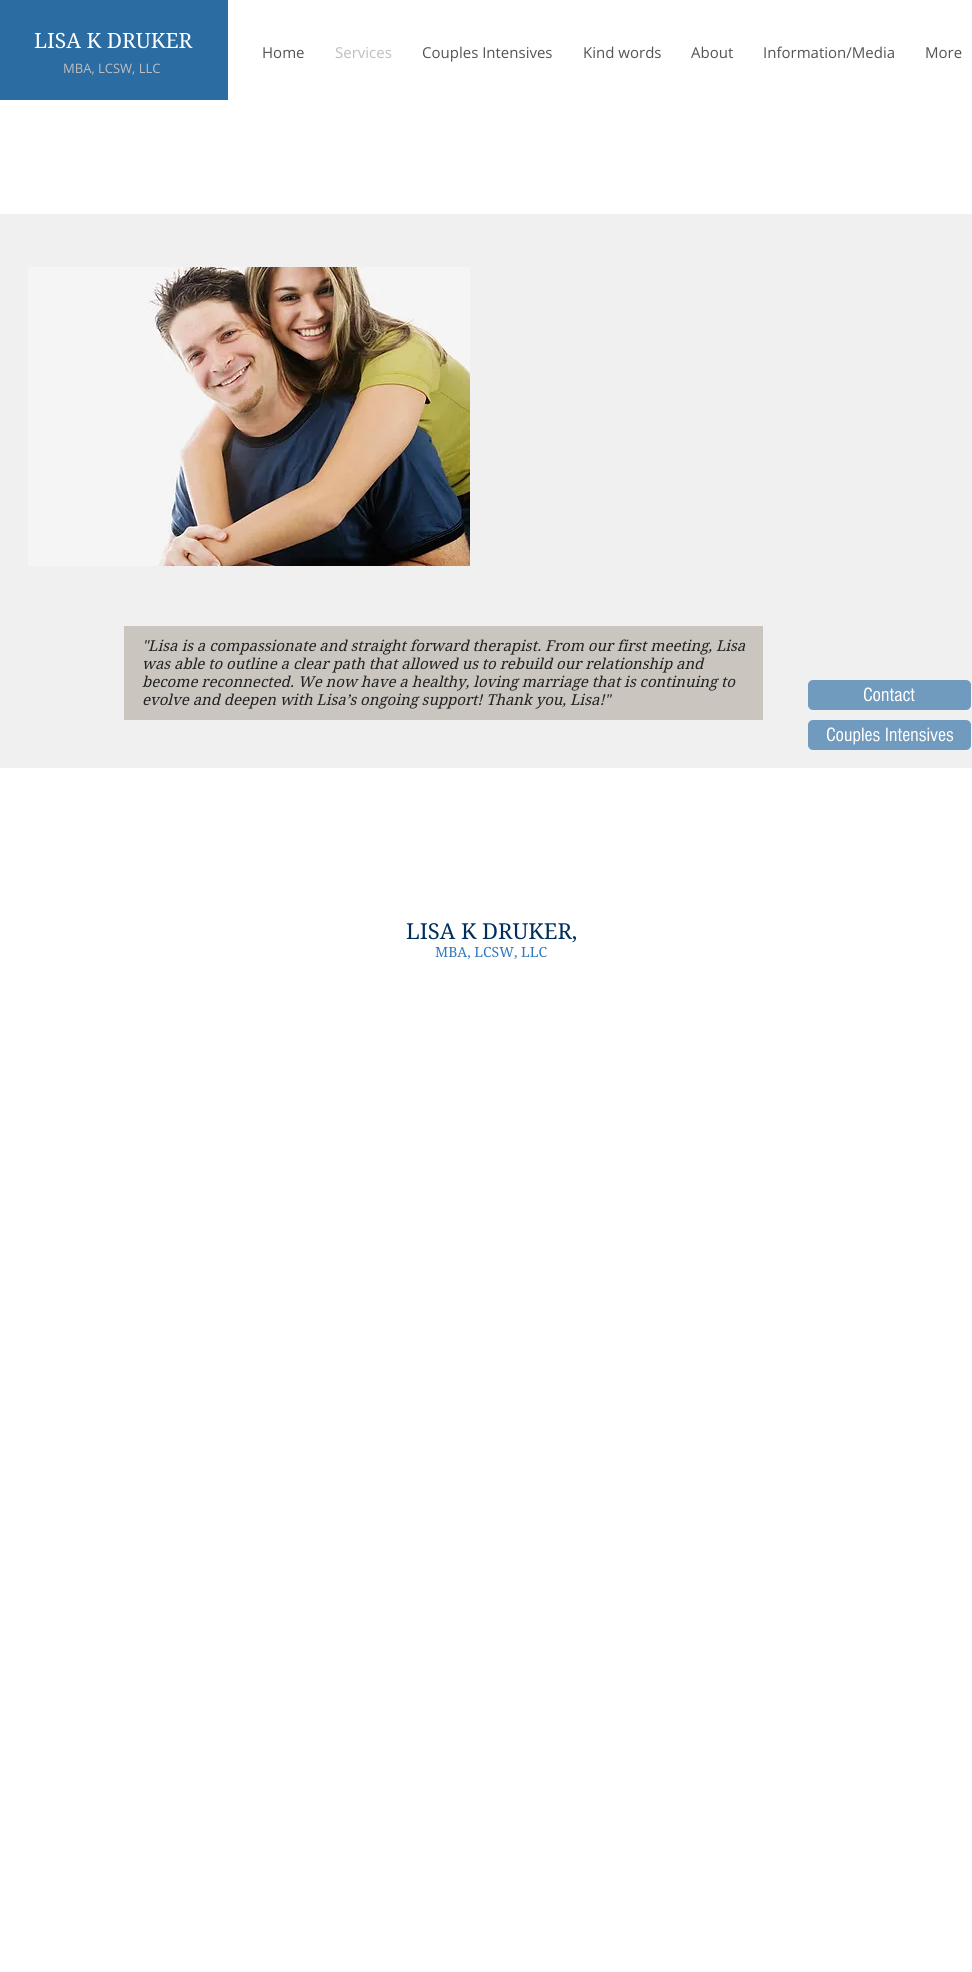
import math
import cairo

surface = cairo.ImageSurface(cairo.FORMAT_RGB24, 972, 1972)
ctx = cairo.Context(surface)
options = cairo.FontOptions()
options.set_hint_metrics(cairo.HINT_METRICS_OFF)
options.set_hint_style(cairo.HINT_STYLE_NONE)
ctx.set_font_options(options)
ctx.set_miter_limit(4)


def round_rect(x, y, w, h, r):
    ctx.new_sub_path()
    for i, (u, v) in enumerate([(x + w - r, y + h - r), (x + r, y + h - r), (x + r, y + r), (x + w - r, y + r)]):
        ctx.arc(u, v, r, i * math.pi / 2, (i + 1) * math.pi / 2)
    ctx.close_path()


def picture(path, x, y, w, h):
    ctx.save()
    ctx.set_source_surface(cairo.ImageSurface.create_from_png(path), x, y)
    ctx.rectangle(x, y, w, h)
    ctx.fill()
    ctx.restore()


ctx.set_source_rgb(1, 1, 1)
ctx.paint()
ctx.set_source_rgb(0.169, 0.424, 0.639)
ctx.rectangle(0, 0, 228, 100)
ctx.fill()
ctx.select_font_face("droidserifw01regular")
ctx.set_font_size(21)
ctx.set_source_rgb(1, 1, 1)
ctx.move_to(34, 48)
ctx.show_text("LISA K DRUKER")
ctx.select_font_face("Open Sans")
ctx.set_font_size(13)
ctx.set_source_rgb(0.745, 0.745, 0.745)
ctx.move_to(63, 73)
ctx.show_text("MBA, LCSW, LLC")
ctx.set_font_size(15)
ctx.set_source_rgb(0.333, 0.325, 0.325)
ctx.move_to(262, 58)
ctx.show_text("Home")
ctx.set_source_rgb(0.745, 0.745, 0.745)
ctx.move_to(335, 58)
ctx.show_text("Services")
ctx.set_source_rgb(0.333, 0.325, 0.325)
ctx.move_to(422, 58)
ctx.show_text("Couples Intensives")
ctx.move_to(583, 58)
ctx.show_text("Kind words")
ctx.move_to(691, 58)
ctx.show_text("About")
ctx.move_to(763, 58)
ctx.show_text("Information/Media")
ctx.move_to(925, 58)
ctx.show_text("More")
ctx.set_source_rgb(0.941, 0.941, 0.941)
ctx.rectangle(0, 214, 972, 554)
ctx.fill()
picture("img1.png", 28, 267, 442, 299)
ctx.set_source_rgb(0.796, 0.773, 0.753)
ctx.rectangle(124, 626, 639, 94)
ctx.fill()
ctx.select_font_face("droidserifw01regular", cairo.FONT_SLANT_ITALIC)
ctx.set_source_rgb(0.133, 0.133, 0.133)
ctx.move_to(142, 651)
ctx.show_text("\"Lisa is a compassionate and straight forward therapist. From our first meeting, Lisa")
ctx.move_to(142, 669)
ctx.show_text("was able to outline a clear path that allowed us to rebuild our relationship and")
ctx.move_to(142, 687)
ctx.show_text("become reconnected. We now have a healthy, loving marriage that is continuing to")
ctx.move_to(142, 705)
ctx.show_text("evolve and deepen with Lisa’s ongoing support! Thank you, Lisa!\"")
ctx.set_source_rgb(0.439, 0.604, 0.745)
round_rect(808, 680, 163, 30, 5)
ctx.fill()
ctx.select_font_face("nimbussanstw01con")
ctx.set_font_size(20)
ctx.set_source_rgb(1, 1, 1)
ctx.move_to(863, 701)
ctx.show_text("Contact")
ctx.set_source_rgb(0.439, 0.604, 0.745)
round_rect(808, 720, 163, 30, 5)
ctx.fill()
ctx.set_source_rgb(1, 1, 1)
ctx.move_to(826, 741)
ctx.show_text("Couples Intensives")
ctx.select_font_face("droidserifw01regular")
ctx.set_font_size(22)
ctx.set_source_rgb(0, 0.18, 0.365)
ctx.move_to(406, 939)
ctx.show_text("LISA K DRUKER,")
ctx.set_font_size(14)
ctx.set_source_rgb(0.188, 0.471, 0.745)
ctx.move_to(435, 957)
ctx.show_text("MBA, LCSW, LLC")
surface.write_to_png("page.png")
